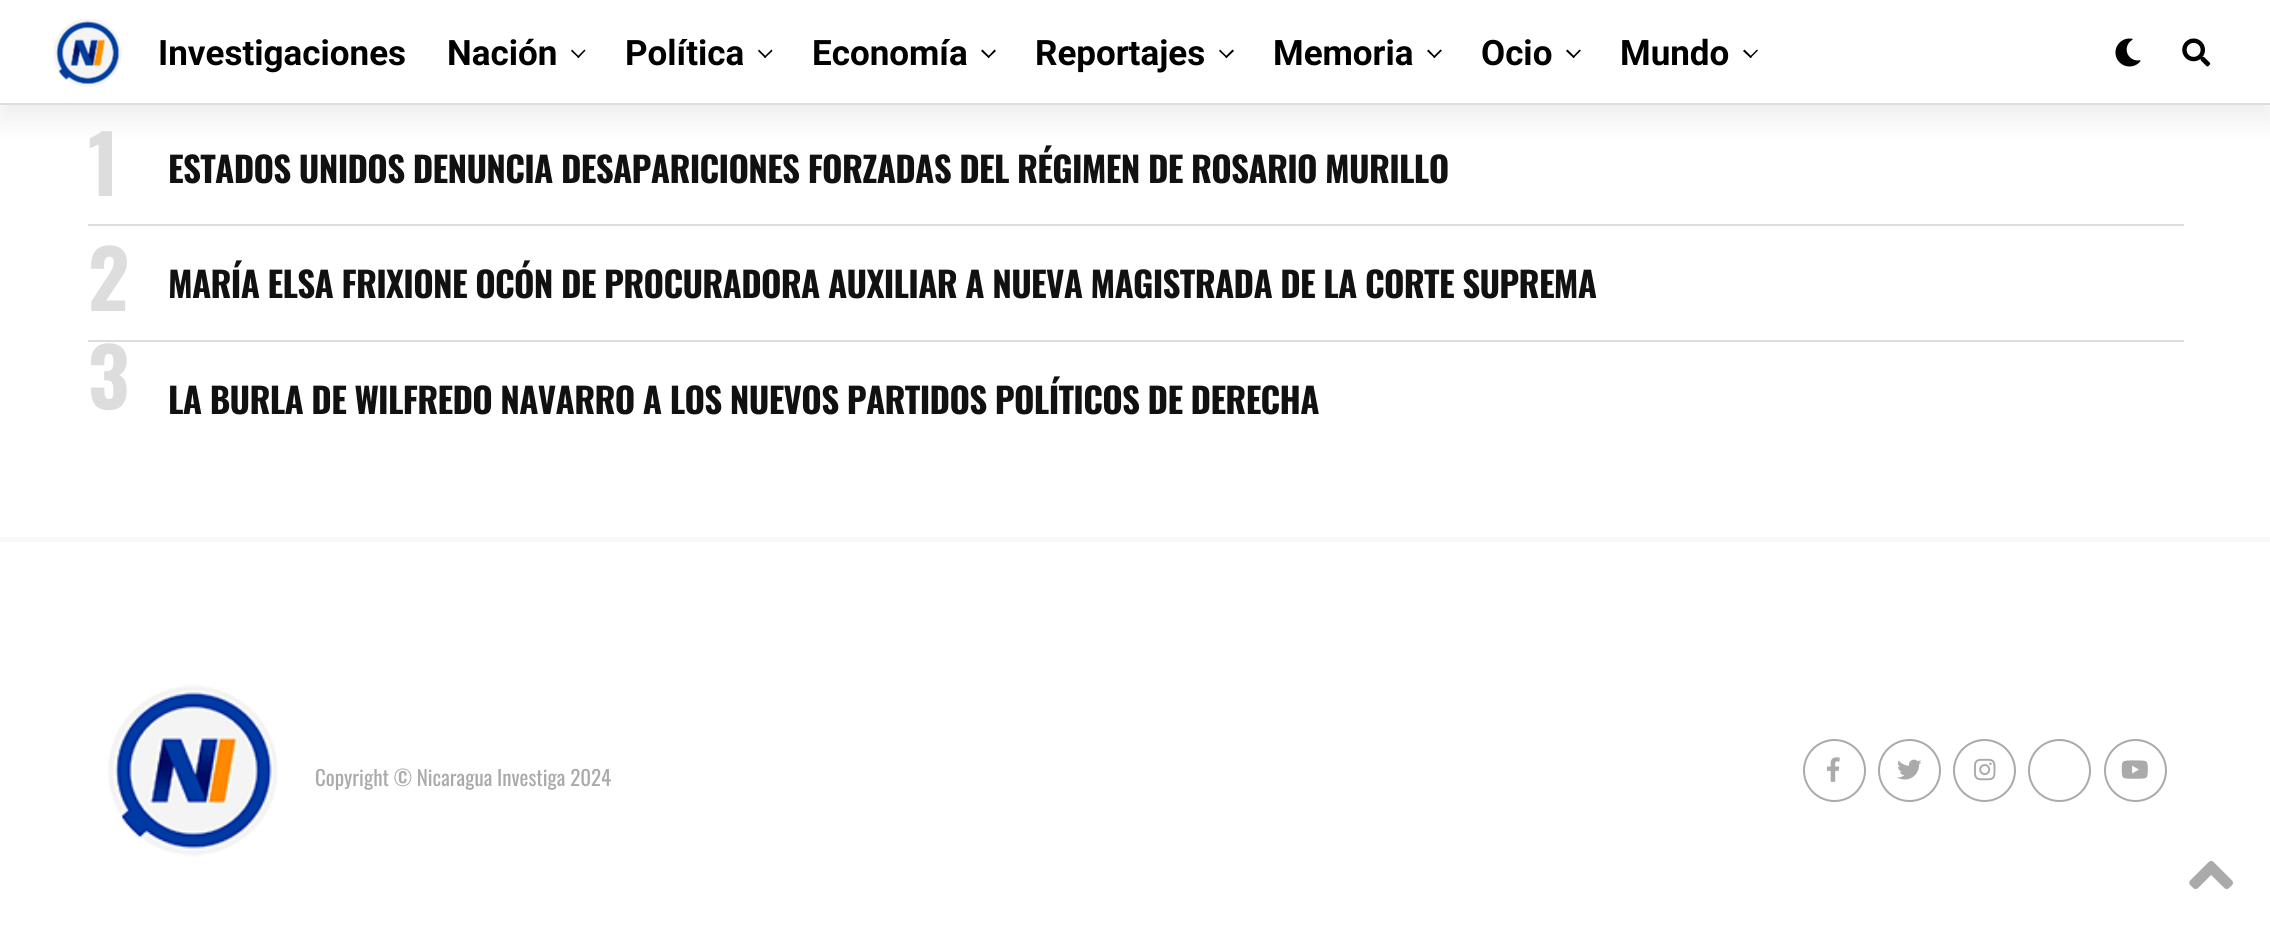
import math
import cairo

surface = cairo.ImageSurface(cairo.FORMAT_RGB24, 2270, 926)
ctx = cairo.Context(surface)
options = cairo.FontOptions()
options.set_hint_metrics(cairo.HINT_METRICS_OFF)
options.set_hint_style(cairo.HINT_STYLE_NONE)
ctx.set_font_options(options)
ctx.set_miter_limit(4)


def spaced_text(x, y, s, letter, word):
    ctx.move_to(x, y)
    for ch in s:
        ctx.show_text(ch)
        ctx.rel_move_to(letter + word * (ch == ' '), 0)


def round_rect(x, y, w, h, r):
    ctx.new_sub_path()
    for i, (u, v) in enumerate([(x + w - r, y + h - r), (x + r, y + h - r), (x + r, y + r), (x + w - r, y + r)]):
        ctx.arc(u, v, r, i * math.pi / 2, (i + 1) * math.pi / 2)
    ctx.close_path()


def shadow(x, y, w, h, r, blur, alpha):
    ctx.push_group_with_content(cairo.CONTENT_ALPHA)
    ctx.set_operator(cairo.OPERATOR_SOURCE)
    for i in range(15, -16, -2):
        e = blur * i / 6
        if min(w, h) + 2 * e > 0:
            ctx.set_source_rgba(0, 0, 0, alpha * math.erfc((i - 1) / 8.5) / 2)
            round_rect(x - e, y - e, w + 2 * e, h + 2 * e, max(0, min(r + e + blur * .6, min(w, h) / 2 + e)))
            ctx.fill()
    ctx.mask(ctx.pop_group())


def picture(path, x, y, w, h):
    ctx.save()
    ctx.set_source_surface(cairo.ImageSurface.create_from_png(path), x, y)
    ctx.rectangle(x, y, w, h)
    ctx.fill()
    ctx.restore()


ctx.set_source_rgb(1, 1, 1)
ctx.paint()
ctx.set_source_rgb(0.082, 0.082, 0.118)
shadow(0, 14, 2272, 105, 0, 14, 0.08)
ctx.set_source_rgb(1, 1, 1)
ctx.rectangle(0, 0, 2270, 103)
ctx.fill()
ctx.set_source_rgb(0.867, 0.867, 0.867)
ctx.rectangle(0, 103, 2270, 2)
ctx.fill()
picture("img1.png", 53, 19, 69, 68)
ctx.select_font_face("Roboto", cairo.FONT_SLANT_NORMAL, cairo.FONT_WEIGHT_BOLD)
ctx.set_font_size(35)
ctx.set_source_rgb(0, 0, 0)
ctx.move_to(158, 65)
ctx.show_text("Investigaciones")
ctx.move_to(447, 65)
ctx.show_text("Nación")
ctx.new_path()
ctx.move_to(584.5, 49.5)
ctx.line_to(585.5, 50.5)
ctx.line_to(578.5, 58)
ctx.line_to(577, 57)
ctx.close_path()
ctx.fill()
ctx.new_path()
ctx.move_to(572, 49.5)
ctx.line_to(579.5, 57)
ctx.line_to(578.5, 58)
ctx.line_to(571, 51)
ctx.close_path()
ctx.fill()
ctx.move_to(625, 65)
ctx.show_text("Política")
ctx.new_path()
ctx.move_to(771.5, 49.5)
ctx.line_to(772.5, 51)
ctx.line_to(765, 58)
ctx.line_to(764, 57)
ctx.close_path()
ctx.fill()
ctx.new_path()
ctx.move_to(759, 49.5)
ctx.line_to(766.5, 57)
ctx.line_to(765, 58)
ctx.line_to(758, 51)
ctx.close_path()
ctx.fill()
ctx.move_to(812, 65)
ctx.show_text("Economía")
ctx.new_path()
ctx.move_to(994.5, 49.5)
ctx.line_to(996, 51)
ctx.line_to(988.5, 58)
ctx.line_to(987.5, 57)
ctx.close_path()
ctx.fill()
ctx.new_path()
ctx.move_to(982.5, 49.5)
ctx.line_to(990, 57)
ctx.line_to(988.5, 58)
ctx.line_to(981, 51)
ctx.close_path()
ctx.fill()
ctx.move_to(1035, 65)
ctx.show_text("Reportajes")
ctx.new_path()
ctx.move_to(1232.5, 49.5)
ctx.line_to(1234, 51)
ctx.line_to(1226.5, 58)
ctx.line_to(1225, 57)
ctx.close_path()
ctx.fill()
ctx.new_path()
ctx.move_to(1220, 49.5)
ctx.line_to(1227.5, 57)
ctx.line_to(1226.5, 58)
ctx.line_to(1219, 51)
ctx.close_path()
ctx.fill()
ctx.move_to(1273, 65)
ctx.show_text("Memoria")
ctx.new_path()
ctx.move_to(1440.5, 49.5)
ctx.line_to(1442, 50.5)
ctx.line_to(1434.5, 58)
ctx.line_to(1433, 57)
ctx.close_path()
ctx.fill()
ctx.new_path()
ctx.move_to(1428.5, 49.5)
ctx.line_to(1435.5, 57)
ctx.line_to(1434.5, 58)
ctx.line_to(1427, 51)
ctx.close_path()
ctx.fill()
ctx.move_to(1481, 65)
ctx.show_text("Ocio")
ctx.new_path()
ctx.move_to(1579.5, 49.5)
ctx.line_to(1581, 50.5)
ctx.line_to(1573.5, 58)
ctx.line_to(1572.5, 57)
ctx.close_path()
ctx.fill()
ctx.new_path()
ctx.move_to(1567.5, 49.5)
ctx.line_to(1575, 57)
ctx.line_to(1573.5, 58)
ctx.line_to(1566, 51)
ctx.close_path()
ctx.fill()
ctx.move_to(1620, 65)
ctx.show_text("Mundo")
ctx.new_path()
ctx.move_to(1757, 49.5)
ctx.line_to(1758, 50.5)
ctx.line_to(1750.5, 58)
ctx.line_to(1749.5, 57)
ctx.close_path()
ctx.fill()
ctx.new_path()
ctx.move_to(1744.5, 49.5)
ctx.line_to(1752, 57)
ctx.line_to(1750.5, 58)
ctx.line_to(1743, 51)
ctx.close_path()
ctx.fill()
picture("img2.png", 2115, 38, 26, 29)
picture("img3.png", 2182, 38, 29, 29)
ctx.set_source_rgb(0.867, 0.867, 0.867)
ctx.rectangle(88, 224, 2096, 2)
ctx.fill()
ctx.select_font_face("Oswald", cairo.FONT_SLANT_NORMAL, cairo.FONT_WEIGHT_BOLD)
ctx.set_font_size(80)
ctx.move_to(88, 196)
ctx.show_text("1")
ctx.set_font_size(35)
ctx.set_source_rgb(0.067, 0.067, 0.067)
spaced_text(168, 183, "ESTADOS UNIDOS DENUNCIA DESAPARICIONES FORZADAS DEL RÉGIMEN DE ROSARIO MURILLO", -0.7, 0)
ctx.set_source_rgb(0.867, 0.867, 0.867)
ctx.rectangle(88, 340, 2096, 2)
ctx.fill()
ctx.set_font_size(80)
ctx.move_to(88, 311)
ctx.show_text("2")
ctx.set_font_size(35)
ctx.set_source_rgb(0.067, 0.067, 0.067)
spaced_text(168, 298, "MARÍA ELSA FRIXIONE OCÓN DE PROCURADORA AUXILIAR A NUEVA MAGISTRADA DE LA CORTE SUPREMA", -0.7, 0)
ctx.set_font_size(80)
ctx.set_source_rgb(0.867, 0.867, 0.867)
ctx.move_to(88, 409)
ctx.show_text("3")
ctx.set_font_size(35)
ctx.set_source_rgb(0.067, 0.067, 0.067)
spaced_text(168, 414, "LA BURLA DE WILFREDO NAVARRO A LOS NUEVOS PARTIDOS POLÍTICOS DE DERECHA", -0.7, 0)
ctx.set_source_rgb(0.969, 0.969, 0.969)
ctx.rectangle(0, 537, 2270, 5)
ctx.fill()
picture("img4.png", 108, 684, 170, 173)
ctx.select_font_face("Oswald")
ctx.set_font_size(21)
ctx.set_source_rgb(0.667, 0.667, 0.667)
ctx.move_to(315, 786)
ctx.show_text("Copyright © Nicaragua Investiga 2024")
ctx.new_path()
ctx.arc(1834.5, 770.5, 30.5, 0, 2 * math.pi)
ctx.stroke()
picture("img5.png", 1827, 757, 13, 25)
ctx.arc(1909.5, 770.5, 30.5, 0, 2 * math.pi)
ctx.stroke()
picture("img6.png", 1897, 759, 25, 21)
ctx.arc(1984.5, 770.5, 30.5, 0, 2 * math.pi)
ctx.stroke()
picture("img7.png", 1974, 758, 22, 23)
ctx.arc(2059.5, 770.5, 30.5, 0, 2 * math.pi)
ctx.stroke()
ctx.arc(2135.5, 770.5, 30.5, 0, 2 * math.pi)
ctx.stroke()
picture("img8.png", 2121, 760, 27, 19)
picture("img9.png", 2189, 861, 44, 28)
surface.write_to_png("page.png")
